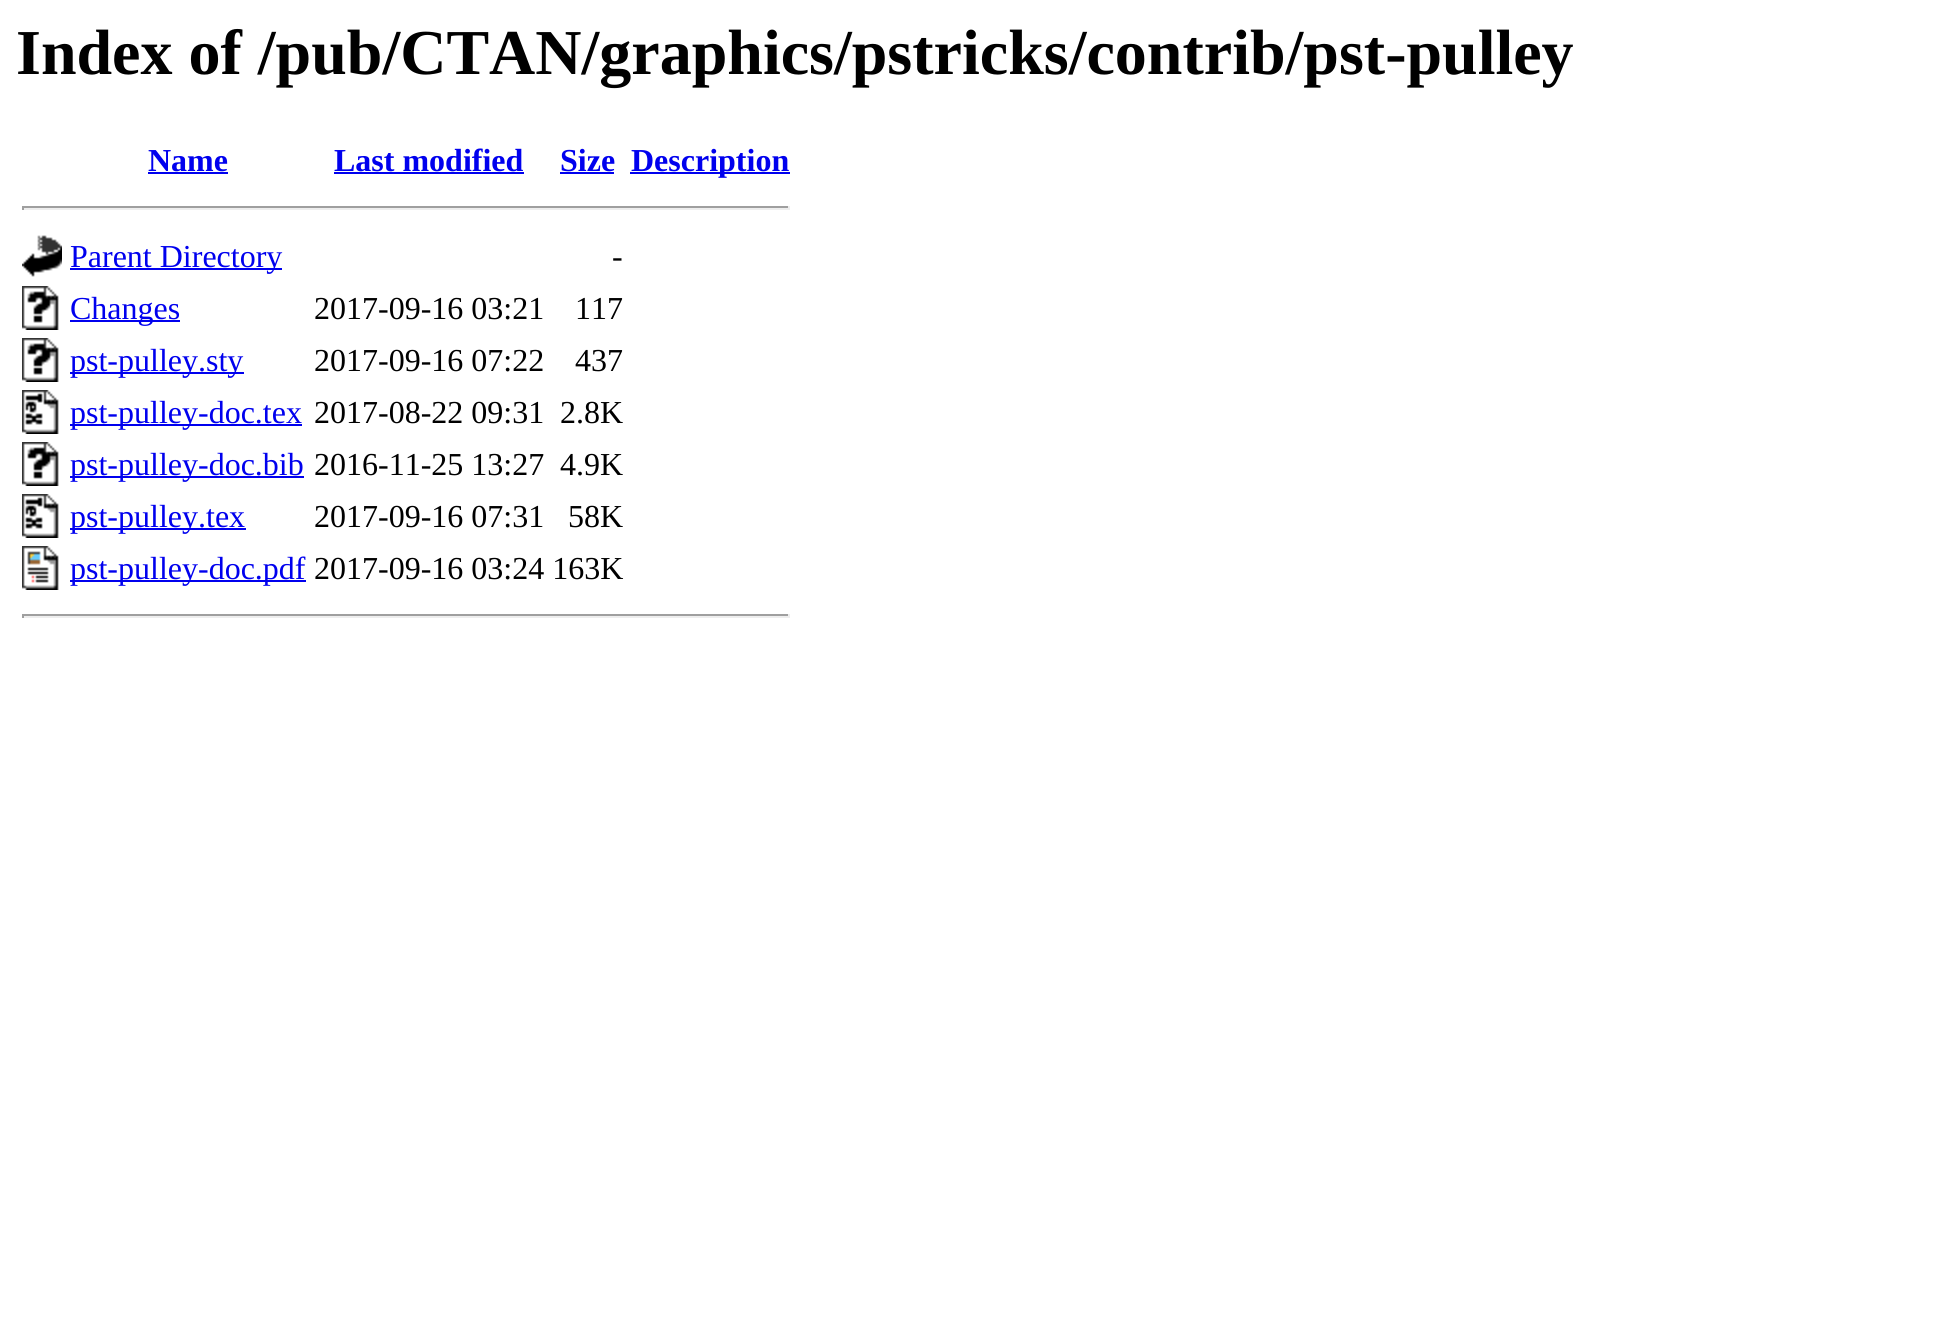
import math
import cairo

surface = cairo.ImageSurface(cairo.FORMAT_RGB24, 1943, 1327)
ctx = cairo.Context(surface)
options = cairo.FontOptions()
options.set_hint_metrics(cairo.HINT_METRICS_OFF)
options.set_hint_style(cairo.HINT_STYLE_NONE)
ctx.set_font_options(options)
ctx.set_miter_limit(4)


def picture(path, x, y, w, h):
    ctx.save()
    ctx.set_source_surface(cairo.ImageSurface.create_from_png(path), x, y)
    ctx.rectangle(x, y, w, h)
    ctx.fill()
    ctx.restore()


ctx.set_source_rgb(1, 1, 1)
ctx.paint()
ctx.select_font_face("Liberation Serif", cairo.FONT_SLANT_NORMAL, cairo.FONT_WEIGHT_BOLD)
ctx.set_font_size(64)
ctx.set_source_rgb(0, 0, 0)
ctx.move_to(16, 74)
ctx.show_text("Index of /pub/CTAN/graphics/pstricks/contrib/pst-pulley")
ctx.set_font_size(32)
ctx.set_source_rgb(0, 0, 0.933)
ctx.move_to(148, 171)
ctx.show_text("Name")
ctx.rectangle(148, 172, 80, 2)
ctx.fill()
ctx.move_to(334, 171)
ctx.show_text("Last modified")
ctx.rectangle(334, 172, 190, 2)
ctx.fill()
ctx.move_to(560, 171)
ctx.show_text("Size")
ctx.rectangle(560, 172, 54, 2)
ctx.fill()
ctx.rectangle(630, 172, 160, 2)
ctx.fill()
ctx.move_to(631, 171)
ctx.show_text("Description")
ctx.set_source_rgb(0.624, 0.624, 0.624)
ctx.rectangle(22, 206, 768, 2)
ctx.fill()
ctx.set_source_rgb(0.933, 0.933, 0.933)
ctx.rectangle(788, 206, 2, 4)
ctx.fill()
ctx.rectangle(22, 208, 768, 2)
ctx.fill()
ctx.set_source_rgb(0.624, 0.624, 0.624)
ctx.rectangle(22, 206, 2, 4)
ctx.fill()
picture("img1.png", 22, 235, 40, 42)
ctx.set_source_rgb(0, 0, 0.933)
ctx.rectangle(70, 268, 212, 2)
ctx.fill()
ctx.select_font_face("Liberation Serif")
ctx.move_to(70, 267)
ctx.show_text("Parent Directory")
ctx.set_source_rgb(0, 0, 0)
ctx.move_to(612, 267)
ctx.show_text("-")
picture("img2.png", 22, 286, 37, 44)
ctx.set_source_rgb(0, 0, 0.933)
ctx.rectangle(70, 320, 110, 2)
ctx.fill()
ctx.move_to(70, 319)
ctx.show_text("Changes")
ctx.set_source_rgb(0, 0, 0)
ctx.move_to(314, 319)
ctx.show_text("2017-09-16 03:21")
ctx.move_to(575, 319)
ctx.show_text("117")
picture("img2.png", 22, 338, 37, 44)
ctx.set_source_rgb(0, 0, 0.933)
ctx.rectangle(70, 372, 174, 2)
ctx.fill()
ctx.move_to(70, 371)
ctx.show_text("pst-pulley.sty")
ctx.set_source_rgb(0, 0, 0)
ctx.move_to(314, 371)
ctx.show_text("2017-09-16 07:22")
ctx.move_to(575, 371)
ctx.show_text("437")
picture("img3.png", 22, 390, 37, 44)
ctx.set_source_rgb(0, 0, 0.933)
ctx.rectangle(70, 424, 232, 2)
ctx.fill()
ctx.move_to(70, 423)
ctx.show_text("pst-pulley-doc.tex")
ctx.set_source_rgb(0, 0, 0)
ctx.move_to(314, 423)
ctx.show_text("2017-08-22 09:31")
ctx.move_to(560, 423)
ctx.show_text("2.8K")
picture("img2.png", 22, 442, 37, 44)
ctx.set_source_rgb(0, 0, 0.933)
ctx.rectangle(70, 476, 234, 2)
ctx.fill()
ctx.move_to(70, 475)
ctx.show_text("pst-pulley-doc.bib")
ctx.set_source_rgb(0, 0, 0)
ctx.move_to(314, 475)
ctx.show_text("2016-11-25 13:27")
ctx.move_to(560, 475)
ctx.show_text("4.9K")
picture("img3.png", 22, 494, 37, 44)
ctx.set_source_rgb(0, 0, 0.933)
ctx.rectangle(70, 528, 176, 2)
ctx.fill()
ctx.move_to(70, 527)
ctx.show_text("pst-pulley.tex")
ctx.set_source_rgb(0, 0, 0)
ctx.move_to(314, 527)
ctx.show_text("2017-09-16 07:31")
ctx.move_to(568, 527)
ctx.show_text("58K")
picture("img4.png", 22, 546, 37, 44)
ctx.set_source_rgb(0, 0, 0.933)
ctx.rectangle(70, 580, 236, 2)
ctx.fill()
ctx.move_to(70, 579)
ctx.show_text("pst-pulley-doc.pdf")
ctx.set_source_rgb(0, 0, 0)
ctx.move_to(314, 579)
ctx.show_text("2017-09-16 03:24 163K")
ctx.set_source_rgb(0.624, 0.624, 0.624)
ctx.rectangle(22, 614, 768, 2)
ctx.fill()
ctx.set_source_rgb(0.933, 0.933, 0.933)
ctx.rectangle(788, 614, 2, 4)
ctx.fill()
ctx.rectangle(22, 616, 768, 2)
ctx.fill()
ctx.set_source_rgb(0.624, 0.624, 0.624)
ctx.rectangle(22, 614, 2, 4)
ctx.fill()
surface.write_to_png("page.png")
